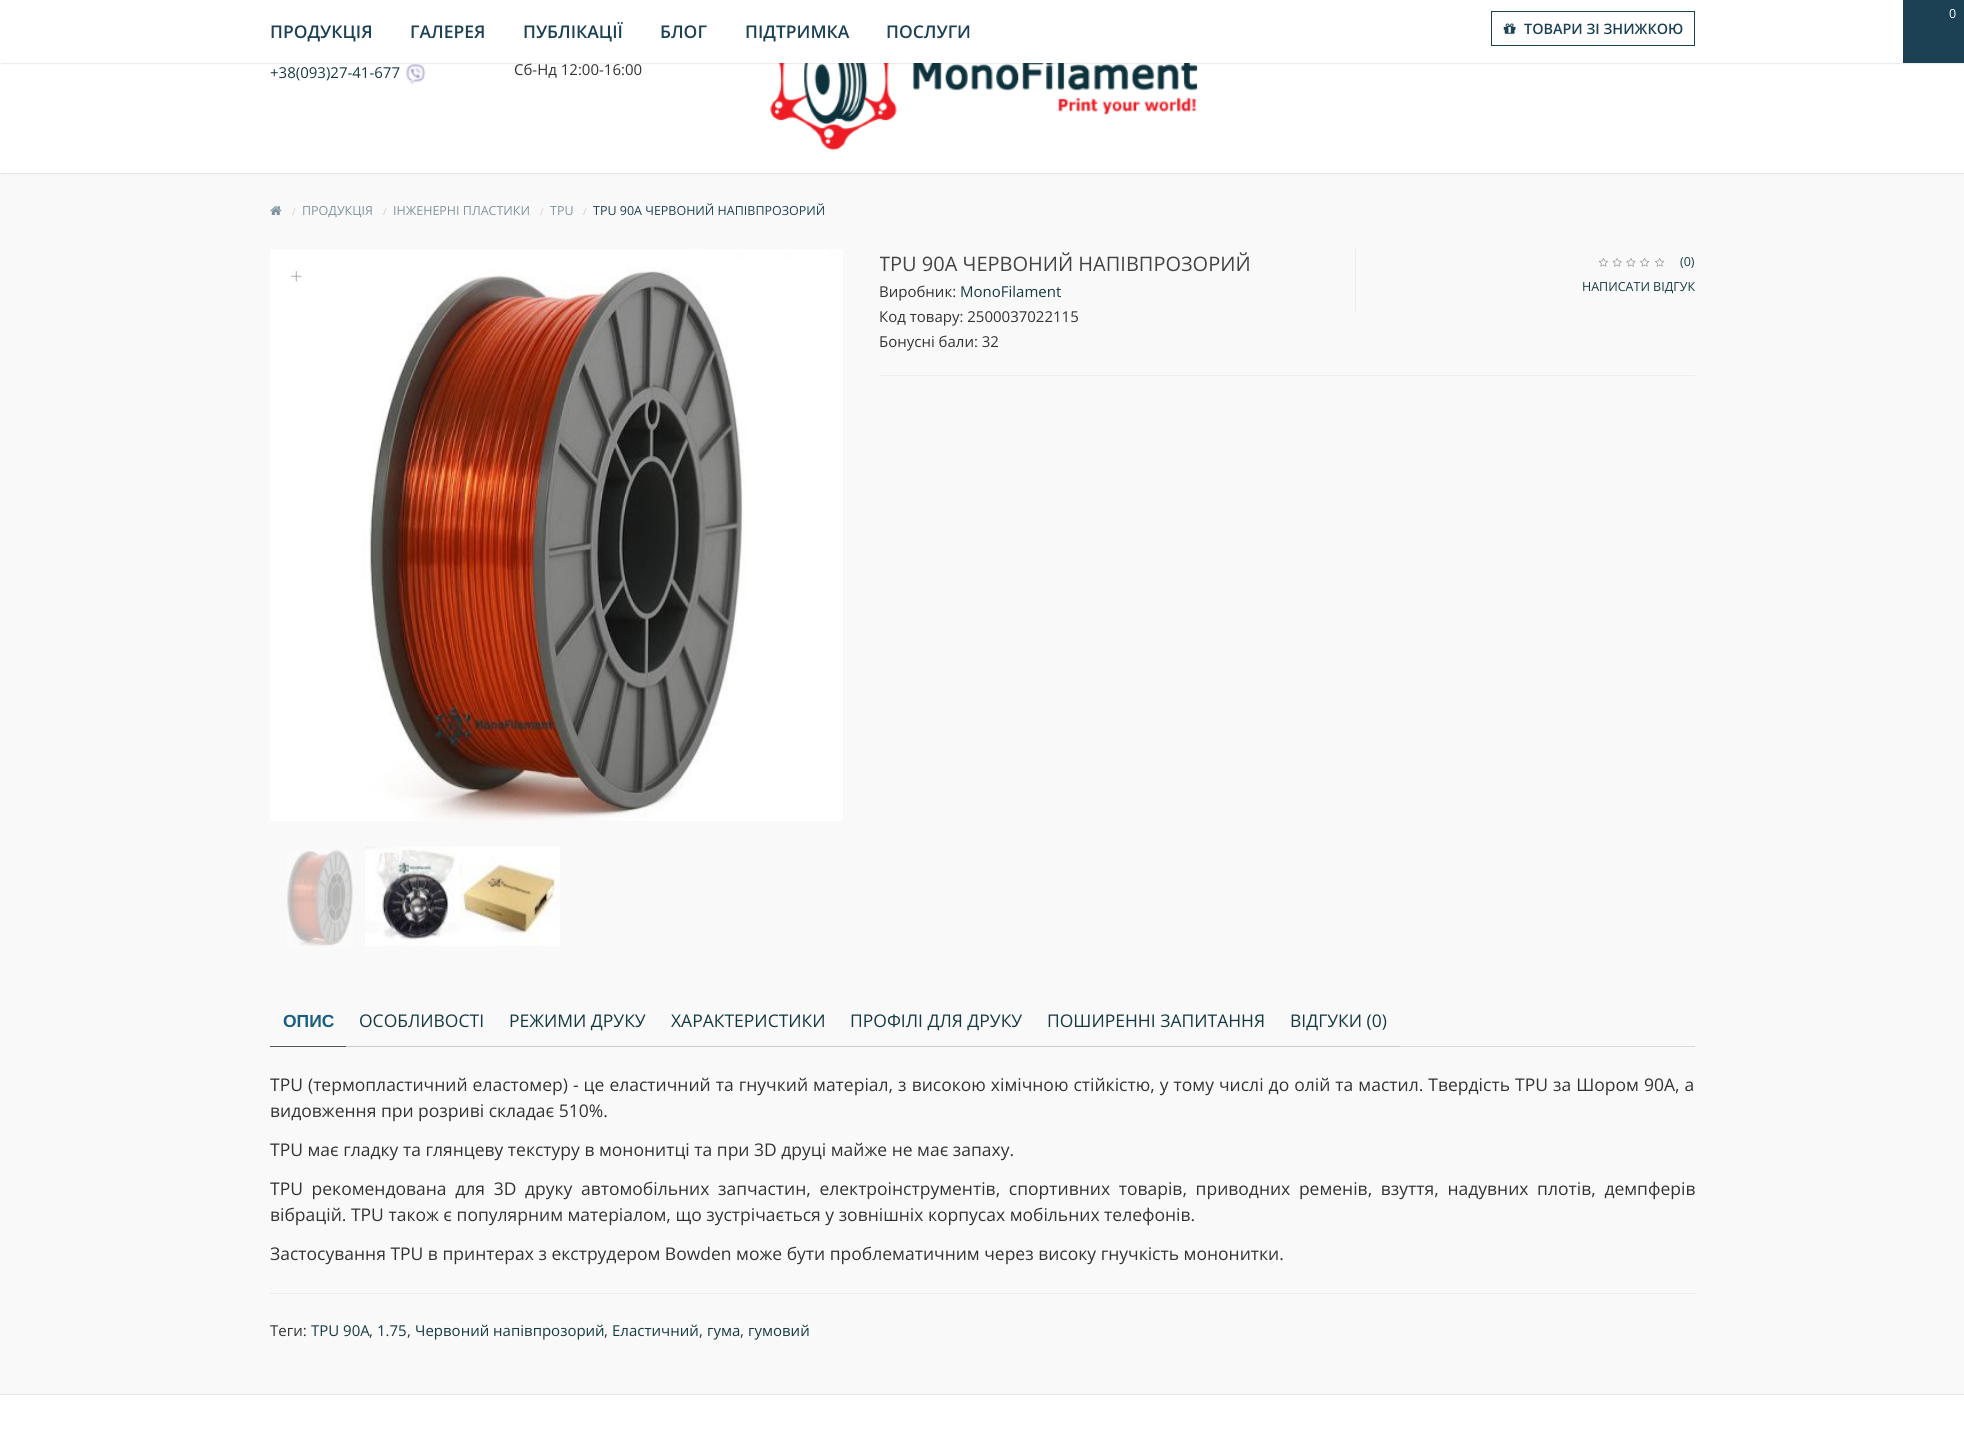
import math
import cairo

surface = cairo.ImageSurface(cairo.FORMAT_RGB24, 1964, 1435)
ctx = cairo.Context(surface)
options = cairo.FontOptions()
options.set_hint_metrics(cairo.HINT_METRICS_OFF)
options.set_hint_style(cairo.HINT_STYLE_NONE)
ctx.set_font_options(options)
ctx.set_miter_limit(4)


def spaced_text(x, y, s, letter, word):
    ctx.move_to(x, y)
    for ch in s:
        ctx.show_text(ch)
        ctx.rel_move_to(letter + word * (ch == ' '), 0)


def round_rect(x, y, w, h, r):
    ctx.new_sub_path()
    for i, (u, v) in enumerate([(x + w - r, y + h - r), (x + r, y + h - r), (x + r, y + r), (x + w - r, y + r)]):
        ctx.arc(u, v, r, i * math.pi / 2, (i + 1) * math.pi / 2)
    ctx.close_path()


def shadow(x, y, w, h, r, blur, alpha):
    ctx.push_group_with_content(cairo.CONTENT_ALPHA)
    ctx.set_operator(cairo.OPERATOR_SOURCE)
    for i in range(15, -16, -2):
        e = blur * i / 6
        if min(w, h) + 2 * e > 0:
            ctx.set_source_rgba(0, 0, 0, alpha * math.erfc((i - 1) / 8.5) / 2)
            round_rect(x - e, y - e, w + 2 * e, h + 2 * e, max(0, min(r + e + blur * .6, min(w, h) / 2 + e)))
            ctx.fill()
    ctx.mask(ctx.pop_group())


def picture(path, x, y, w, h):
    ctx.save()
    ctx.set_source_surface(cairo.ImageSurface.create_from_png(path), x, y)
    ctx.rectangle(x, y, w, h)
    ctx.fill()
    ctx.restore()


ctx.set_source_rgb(0.976, 0.976, 0.976)
ctx.paint()
ctx.set_source_rgb(0.133, 0.133, 0.133)
shadow(1, -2, 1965, 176, 0, 0.5, 0.1)
ctx.set_source_rgb(1, 1, 1)
ctx.rectangle(0, 63, 1964, 110)
ctx.fill()
picture("img1.png", 406, 64, 19, 20)
picture("img2.png", 770, 63, 428, 88)
ctx.set_source_rgb(0.133, 0.133, 0.133)
shadow(1, 1, 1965, 63, 0, 0.5, 0.1)
ctx.set_source_rgb(0.11, 0.255, 0.329)
ctx.rectangle(1903, 0, 61, 63)
ctx.fill()
ctx.select_font_face("Open Sans")
ctx.set_font_size(12.5)
ctx.set_source_rgb(1, 1, 1)
ctx.move_to(1949, 18)
ctx.show_text("0")
ctx.set_font_size(15)
ctx.set_source_rgb(0.086, 0.227, 0.259)
ctx.move_to(270, 78)
ctx.show_text("+38(093)27-41-677")
ctx.set_source_rgb(0.2, 0.2, 0.2)
ctx.move_to(514, 75)
ctx.show_text("Cб-Нд 12:00-16:00")
ctx.set_source_rgb(1, 1, 1)
ctx.rectangle(0, 0, 1903, 63)
ctx.fill()
ctx.select_font_face("Open Sans SemiBold")
ctx.set_font_size(17.5)
ctx.set_source_rgb(0.11, 0.255, 0.329)
ctx.move_to(270, 38)
ctx.show_text("ПРОДУКЦІЯ")
ctx.move_to(410, 38)
ctx.show_text("ГАЛЕРЕЯ")
ctx.move_to(523, 38)
ctx.show_text("ПУБЛІКАЦІЇ")
ctx.move_to(660, 38)
ctx.show_text("БЛОГ")
ctx.move_to(745, 38)
ctx.show_text("ПІДТРИМКА")
ctx.move_to(886, 38)
ctx.show_text("ПОСЛУГИ")
ctx.rectangle(1491.5, 11.5, 203, 34)
ctx.set_line_width(1)
ctx.stroke()
picture("img3.png", 1503, 23, 13, 11)
ctx.set_font_size(14.4)
ctx.move_to(1524, 34)
ctx.show_text("ТОВАРИ ЗІ ЗНИЖКОЮ")
picture("img4.png", 270, 206, 12, 9)
ctx.select_font_face("Open Sans")
ctx.set_font_size(10)
ctx.set_source_rgb(0.8, 0.8, 0.8)
ctx.move_to(292, 215)
ctx.show_text("/")
ctx.set_font_size(12.5)
ctx.set_source_rgb(0.498, 0.58, 0.62)
ctx.move_to(302, 215)
ctx.show_text("ПРОДУКЦІЯ")
ctx.set_font_size(10)
ctx.set_source_rgb(0.8, 0.8, 0.8)
ctx.move_to(383, 215)
ctx.show_text("/")
ctx.set_font_size(12.5)
ctx.set_source_rgb(0.498, 0.58, 0.62)
ctx.move_to(393, 215)
ctx.show_text("ІНЖЕНЕРНІ ПЛАСТИКИ")
ctx.set_font_size(10)
ctx.set_source_rgb(0.8, 0.8, 0.8)
ctx.move_to(540, 215)
ctx.show_text("/")
ctx.set_font_size(12.5)
ctx.set_source_rgb(0.498, 0.58, 0.62)
ctx.move_to(550, 215)
ctx.show_text("TPU")
ctx.set_font_size(10)
ctx.set_source_rgb(0.8, 0.8, 0.8)
ctx.move_to(583, 215)
ctx.show_text("/")
ctx.set_font_size(12.5)
ctx.set_source_rgb(0.11, 0.255, 0.329)
ctx.move_to(593, 215)
ctx.show_text("TPU 90A ЧЕРВОНИЙ НАПІВПРОЗОРИЙ")
picture("img5.png", 270, 249, 573, 572)
ctx.select_font_face("Open Sans Light")
ctx.set_font_size(22)
ctx.set_source_rgb(0.647, 0.647, 0.647)
ctx.move_to(290, 284)
ctx.show_text("+")
picture("img6.png", 287, 850, 66, 97)
picture("img7.png", 365, 846, 100, 100)
picture("img8.png", 460, 846, 100, 100)
ctx.save()
ctx.rectangle(880, 249, 815, 119)
ctx.clip()
ctx.select_font_face("Open Sans")
ctx.set_font_size(20)
ctx.set_source_rgb(0.267, 0.267, 0.267)
ctx.move_to(879, 271)
ctx.show_text("TPU 90A ЧЕРВОНИЙ НАПІВПРОЗОРИЙ")
ctx.restore()
ctx.select_font_face("Open Sans")
ctx.set_font_size(15)
ctx.set_source_rgb(0.2, 0.2, 0.2)
ctx.move_to(879, 297)
ctx.show_text("Виробник:")
ctx.set_source_rgb(0.086, 0.227, 0.259)
ctx.move_to(960, 297)
ctx.show_text("MonoFilament")
ctx.set_source_rgb(0.2, 0.2, 0.2)
ctx.move_to(879, 322)
ctx.show_text("Код товару: 2500037022115")
ctx.move_to(879, 347)
ctx.show_text("Бонусні бали: 32")
ctx.set_source_rgb(0.929, 0.929, 0.929)
ctx.rectangle(1355, 249, 1, 62)
ctx.fill()
picture("img9.png", 1598, 258, 10, 9)
picture("img10.png", 1612, 258, 10, 9)
picture("img11.png", 1626, 258, 10, 9)
picture("img12.png", 1640, 258, 10, 9)
picture("img12.png", 1655, 258, 10, 9)
ctx.set_font_size(12.5)
ctx.set_source_rgb(0.086, 0.227, 0.259)
ctx.move_to(1680, 266)
ctx.show_text("(0)")
ctx.move_to(1582, 291)
ctx.show_text("НАПИСАТИ ВІДГУК")
ctx.set_source_rgb(0.933, 0.933, 0.933)
ctx.rectangle(880, 375, 815, 1)
ctx.fill()
ctx.set_source_rgb(0.855, 0.855, 0.855)
ctx.rectangle(1400, 1046, 295, 1)
ctx.fill()
ctx.set_source_rgb(0.333, 0.333, 0.333)
ctx.rectangle(270, 1046, 76, 1)
ctx.fill()
ctx.select_font_face("Liberation Sans", cairo.FONT_SLANT_NORMAL, cairo.FONT_WEIGHT_BOLD)
ctx.set_font_size(17.5)
ctx.set_source_rgb(0.098, 0.373, 0.514)
ctx.move_to(283, 1027)
ctx.show_text("ОПИС")
ctx.set_source_rgb(0.8, 0.8, 0.8)
ctx.rectangle(346, 1046, 1054, 1)
ctx.fill()
ctx.select_font_face("Open Sans")
ctx.set_source_rgb(0.086, 0.227, 0.259)
ctx.move_to(359, 1027)
ctx.show_text("ОСОБЛИВОСТІ")
ctx.move_to(509, 1027)
ctx.show_text("РЕЖИМИ ДРУКУ")
ctx.move_to(671, 1027)
ctx.show_text("ХАРАКТЕРИСТИКИ")
ctx.move_to(850, 1027)
ctx.show_text("ПРОФІЛІ ДЛЯ ДРУКУ")
ctx.move_to(1047, 1027)
ctx.show_text("ПОШИРЕННІ ЗАПИТАННЯ")
ctx.move_to(1290, 1027)
ctx.show_text("ВІДГУКИ (0)")
ctx.set_source_rgb(0.2, 0.2, 0.2)
spaced_text(270, 1091, "TPU (термопластичний еластомер) - це еластичний та гнучкий матеріал, з високою хімічною стійкістю, у тому числі до олій та мастил. Твердість TPU за Шором 90А, а", 0, 0.5)
ctx.move_to(270, 1117)
ctx.show_text("видовження при розриві складає 510%.")
ctx.move_to(270, 1156)
ctx.show_text("TPU має гладку та глянцеву текстуру в мононитці та при 3D друці майже не має запаху.")
spaced_text(270, 1195, "TPU рекомендована для 3D друку автомобільних запчастин, електроінструментів, спортивних товарів, приводних ременів, взуття, надувних плотів, демпферів", 0, 4.1)
ctx.move_to(270, 1221)
ctx.show_text("вібрацій. TPU також є популярним матеріалом, що зустрічається у зовнішніх корпусах мобільних телефонів.")
ctx.move_to(270, 1260)
ctx.show_text("Застосування TPU в принтерах з екструдером Bowden може бути проблематичним через високу гнучкість мононитки.")
ctx.set_source_rgb(0.933, 0.933, 0.933)
ctx.rectangle(270, 1293, 1425, 1)
ctx.fill()
ctx.set_font_size(15)
ctx.set_source_rgb(0.2, 0.2, 0.2)
ctx.move_to(270, 1336)
ctx.show_text("Теги:")
ctx.set_source_rgb(0.086, 0.227, 0.259)
ctx.move_to(311, 1336)
ctx.show_text("TPU 90A")
ctx.set_source_rgb(0.2, 0.2, 0.2)
ctx.move_to(369, 1336)
ctx.show_text(",")
ctx.set_source_rgb(0.086, 0.227, 0.259)
ctx.move_to(377, 1336)
ctx.show_text("1.75")
ctx.set_source_rgb(0.2, 0.2, 0.2)
ctx.move_to(407, 1336)
ctx.show_text(",")
ctx.set_source_rgb(0.086, 0.227, 0.259)
ctx.move_to(415, 1336)
ctx.show_text("Червоний напівпрозорий")
ctx.set_source_rgb(0.2, 0.2, 0.2)
ctx.move_to(604, 1336)
ctx.show_text(",")
ctx.set_source_rgb(0.086, 0.227, 0.259)
ctx.move_to(612, 1336)
ctx.show_text("Еластичний")
ctx.set_source_rgb(0.2, 0.2, 0.2)
ctx.move_to(699, 1336)
ctx.show_text(",")
ctx.set_source_rgb(0.086, 0.227, 0.259)
ctx.move_to(707, 1336)
ctx.show_text("гума")
ctx.set_source_rgb(0.2, 0.2, 0.2)
ctx.move_to(740, 1336)
ctx.show_text(",")
ctx.set_source_rgb(0.086, 0.227, 0.259)
ctx.move_to(748, 1336)
ctx.show_text("гумовий")
ctx.set_source_rgb(1, 1, 1)
ctx.rectangle(0, 1395, 1964, 40)
ctx.fill()
ctx.set_source_rgb(0.902, 0.902, 0.902)
ctx.rectangle(0, 1394, 1964, 1)
ctx.fill()
surface.write_to_png("page.png")
